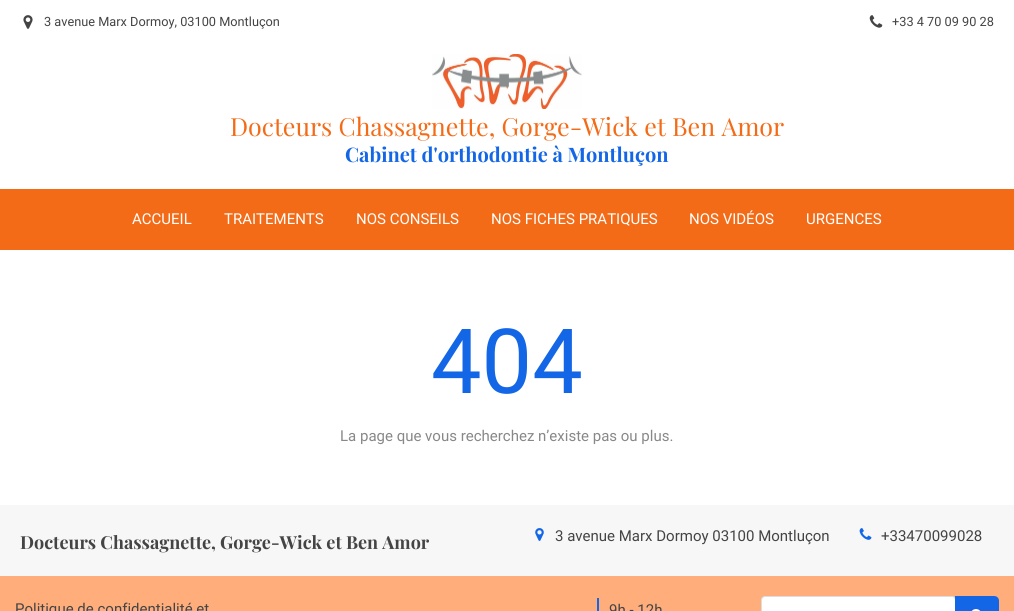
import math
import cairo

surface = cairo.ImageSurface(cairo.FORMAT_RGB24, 1014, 611)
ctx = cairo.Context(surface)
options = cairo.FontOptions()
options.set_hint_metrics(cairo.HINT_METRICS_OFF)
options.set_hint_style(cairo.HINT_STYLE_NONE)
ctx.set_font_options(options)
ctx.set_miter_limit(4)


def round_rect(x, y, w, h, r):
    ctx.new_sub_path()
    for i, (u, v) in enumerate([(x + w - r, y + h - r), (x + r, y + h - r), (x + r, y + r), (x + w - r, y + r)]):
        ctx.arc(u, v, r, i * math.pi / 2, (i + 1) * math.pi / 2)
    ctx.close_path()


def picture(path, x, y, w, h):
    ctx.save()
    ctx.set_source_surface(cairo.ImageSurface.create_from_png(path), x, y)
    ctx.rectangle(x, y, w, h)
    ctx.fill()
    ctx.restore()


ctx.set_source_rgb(1, 1, 1)
ctx.paint()
picture("img1.png", 23, 15, 10, 14)
ctx.select_font_face("Roboto")
ctx.set_font_size(12.75)
ctx.set_source_rgb(0.267, 0.267, 0.267)
ctx.move_to(44, 26)
ctx.show_text("3 avenue Marx Dormoy, 03100 Montluçon")
picture("img2.png", 869, 15, 14, 13)
ctx.move_to(892, 26)
ctx.show_text("+33 4 70 09 90 28")
picture("img3.png", 432, 54, 150, 55)
ctx.select_font_face("Playfair Display")
ctx.set_font_size(25)
ctx.set_source_rgb(0.957, 0.42, 0.09)
ctx.move_to(230, 136)
ctx.show_text("Docteurs Chassagnette, Gorge-Wick et Ben Amor")
ctx.select_font_face("Playfair Display", cairo.FONT_SLANT_NORMAL, cairo.FONT_WEIGHT_BOLD)
ctx.set_font_size(20)
ctx.set_source_rgb(0.075, 0.4, 0.898)
ctx.move_to(345, 162)
ctx.show_text("Cabinet d'orthodontie à Montluçon")
ctx.set_source_rgb(0.957, 0.42, 0.09)
ctx.rectangle(0, 189, 1014, 61)
ctx.fill()
ctx.select_font_face("Roboto")
ctx.set_font_size(15)
ctx.set_source_rgb(1, 1, 1)
ctx.move_to(132, 224)
ctx.show_text("ACCUEIL")
ctx.move_to(224, 224)
ctx.show_text("TRAITEMENTS")
ctx.move_to(356, 224)
ctx.show_text("NOS CONSEILS")
ctx.move_to(491, 224)
ctx.show_text("NOS FICHES PRATIQUES")
ctx.move_to(689, 224)
ctx.show_text("NOS VIDÉOS")
ctx.move_to(806, 224)
ctx.show_text("URGENCES")
ctx.set_font_size(90)
ctx.set_source_rgb(0.075, 0.4, 0.898)
ctx.move_to(431, 393)
ctx.show_text("404")
ctx.set_font_size(15)
ctx.set_source_rgb(0.533, 0.533, 0.533)
ctx.move_to(340, 441)
ctx.show_text("La page que vous recherchez n’existe pas ou plus.")
ctx.set_source_rgb(0.965, 0.965, 0.965)
ctx.rectangle(0, 505, 1014, 71)
ctx.fill()
ctx.select_font_face("Playfair Display", cairo.FONT_SLANT_NORMAL, cairo.FONT_WEIGHT_BOLD)
ctx.set_font_size(18)
ctx.set_source_rgb(0.267, 0.267, 0.267)
ctx.move_to(20, 549)
ctx.show_text("Docteurs Chassagnette, Gorge-Wick et Ben Amor")
picture("img4.png", 535, 528, 9, 13)
ctx.select_font_face("Roboto")
ctx.set_font_size(15)
ctx.move_to(555, 541)
ctx.show_text("3 avenue Marx Dormoy 03100 Montluçon")
picture("img5.png", 859, 528, 13, 12)
ctx.move_to(881, 541)
ctx.show_text("+33470099028")
ctx.set_source_rgb(1, 0.682, 0.482)
ctx.rectangle(0, 576, 1014, 35)
ctx.fill()
ctx.set_source_rgb(0.267, 0.267, 0.267)
ctx.move_to(15, 614)
ctx.show_text("Politique de confidentialité et")
ctx.set_source_rgb(0.075, 0.4, 0.898)
ctx.rectangle(597, 598, 2, 13)
ctx.fill()
ctx.set_source_rgb(0.267, 0.267, 0.267)
ctx.move_to(609, 615)
ctx.show_text("9h - 12h")
ctx.set_source_rgb(1, 1, 1)
round_rect(761.5, 596.5, 194, 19, 3.5)
ctx.fill_preserve()
ctx.set_source_rgb(0.867, 0.867, 0.867)
ctx.set_line_width(1)
ctx.stroke()
ctx.set_source_rgb(0.075, 0.4, 0.898)
ctx.new_path()
ctx.move_to(955, 596)
ctx.line_to(994, 596)
ctx.curve_to(997, 596, 999, 598, 999, 601)
ctx.line_to(999, 611)
ctx.curve_to(999, 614, 997, 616, 994, 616)
ctx.line_to(955, 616)
ctx.close_path()
ctx.fill()
picture("img6.png", 971, 609, 10, 2)
surface.write_to_png("page.png")
